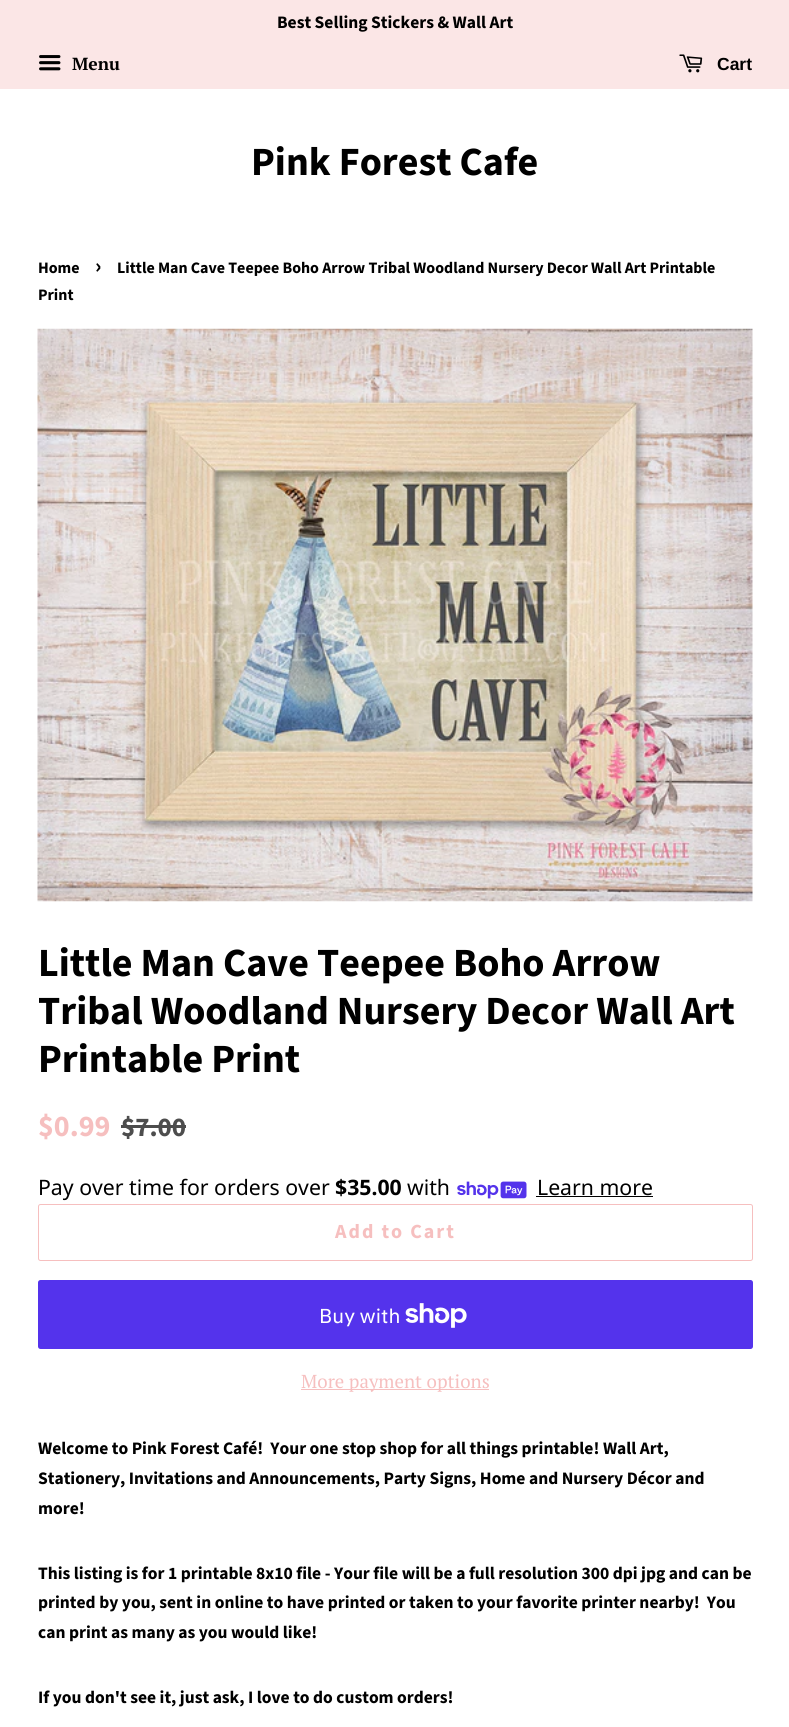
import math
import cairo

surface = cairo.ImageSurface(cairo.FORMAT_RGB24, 789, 1727)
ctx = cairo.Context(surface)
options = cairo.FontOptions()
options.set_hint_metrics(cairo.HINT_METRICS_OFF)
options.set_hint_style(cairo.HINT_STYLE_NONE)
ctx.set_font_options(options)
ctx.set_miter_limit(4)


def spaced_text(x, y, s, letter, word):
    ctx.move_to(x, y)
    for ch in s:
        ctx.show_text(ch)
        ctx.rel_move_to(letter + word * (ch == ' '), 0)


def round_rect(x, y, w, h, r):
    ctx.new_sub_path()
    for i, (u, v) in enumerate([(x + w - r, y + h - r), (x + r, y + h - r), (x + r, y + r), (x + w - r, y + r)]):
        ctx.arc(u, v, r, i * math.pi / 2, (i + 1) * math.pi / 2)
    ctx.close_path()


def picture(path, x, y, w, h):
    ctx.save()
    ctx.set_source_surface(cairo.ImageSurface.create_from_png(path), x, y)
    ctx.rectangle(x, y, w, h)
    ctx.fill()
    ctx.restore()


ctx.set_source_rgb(1, 1, 1)
ctx.paint()
ctx.set_source_rgb(0.984, 0.902, 0.902)
ctx.rectangle(0, 0, 789, 89)
ctx.fill()
ctx.select_font_face("Source Sans Pro", cairo.FONT_SLANT_NORMAL, cairo.FONT_WEIGHT_BOLD)
ctx.set_font_size(17.5)
ctx.set_source_rgb(0, 0, 0)
ctx.move_to(277, 28)
ctx.show_text("Best Selling Stickers & Wall Art")
picture("img1.png", 39, 55, 22, 16)
ctx.select_font_face("PT Serif", cairo.FONT_SLANT_NORMAL, cairo.FONT_WEIGHT_BOLD)
ctx.move_to(72, 70)
ctx.show_text("Menu")
picture("img2.png", 679, 54, 24, 19)
ctx.select_font_face("Liberation Sans", cairo.FONT_SLANT_NORMAL, cairo.FONT_WEIGHT_BOLD)
ctx.move_to(717, 70)
ctx.show_text("Cart")
ctx.select_font_face("Source Sans Pro", cairo.FONT_SLANT_NORMAL, cairo.FONT_WEIGHT_BOLD)
ctx.set_font_size(40)
ctx.move_to(251, 175)
ctx.show_text("Pink Forest Cafe")
ctx.set_font_size(15.95)
ctx.move_to(38, 273)
ctx.show_text("Home")
ctx.set_font_size(22)
ctx.move_to(95, 273)
ctx.show_text("›")
ctx.set_font_size(15.95)
ctx.move_to(117, 273)
ctx.show_text("Little Man Cave Teepee Boho Arrow Tribal Woodland Nursery Decor Wall Art Printable")
ctx.move_to(38, 300)
ctx.show_text("Print")
picture("img3.png", 37, 328, 716, 574)
ctx.set_font_size(40)
ctx.move_to(38, 976)
ctx.show_text("Little Man Cave Teepee Boho Arrow")
ctx.move_to(38, 1024)
ctx.show_text("Tribal Woodland Nursery Decor Wall Art")
ctx.move_to(38, 1072)
ctx.show_text("Printable Print")
ctx.set_font_size(30)
ctx.set_source_rgb(0.961, 0.749, 0.749)
ctx.move_to(38, 1136)
ctx.show_text("$0.99")
ctx.set_font_size(27)
ctx.set_source_rgb(0.302, 0.302, 0.302)
ctx.move_to(121, 1136)
ctx.show_text("$7.00")
ctx.rectangle(121, 1125, 65, 3)
ctx.fill()
ctx.select_font_face("Noto Sans")
ctx.set_font_size(21.25)
ctx.set_source_rgb(0, 0, 0)
ctx.move_to(38, 1195)
ctx.show_text("Pay over time for orders over")
ctx.select_font_face("Noto Sans", cairo.FONT_SLANT_NORMAL, cairo.FONT_WEIGHT_BOLD)
ctx.move_to(335, 1195)
ctx.show_text("$35.00")
ctx.select_font_face("Noto Sans")
ctx.move_to(407, 1195)
ctx.show_text("with")
picture("img4.png", 457, 1181, 70, 18)
ctx.move_to(537, 1195)
ctx.show_text("Learn more")
ctx.rectangle(536, 1196, 117, 1)
ctx.fill()
round_rect(38.5, 1204.5, 714, 56, 2)
ctx.set_source_rgb(0.961, 0.749, 0.749)
ctx.set_line_width(1)
ctx.stroke()
ctx.select_font_face("Source Sans Pro", cairo.FONT_SLANT_NORMAL, cairo.FONT_WEIGHT_BOLD)
ctx.set_font_size(20)
spaced_text(335, 1238, "Add to Cart", 2, 0)
ctx.set_source_rgb(0.329, 0.2, 0.922)
round_rect(38, 1280, 715, 69, 2.5)
ctx.fill()
ctx.select_font_face("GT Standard")
ctx.set_source_rgb(1, 1, 1)
ctx.move_to(319, 1323)
ctx.show_text("Buy with")
picture("img5.png", 405, 1303, 62, 25)
ctx.set_source_rgb(0.961, 0.749, 0.749)
ctx.rectangle(301, 1389, 188, 1)
ctx.fill()
ctx.select_font_face("PT Serif")
ctx.set_font_size(18.75)
ctx.move_to(301, 1388)
ctx.show_text("More payment options")
ctx.select_font_face("Source Sans Pro", cairo.FONT_SLANT_NORMAL, cairo.FONT_WEIGHT_BOLD)
ctx.set_font_size(17.5)
ctx.set_source_rgb(0, 0, 0)
ctx.move_to(38, 1454)
ctx.show_text("Welcome to Pink Forest Café!  Your one stop shop for all things printable! Wall Art,")
ctx.move_to(38, 1484)
ctx.show_text("Stationery, Invitations and Announcements, Party Signs, Home and Nursery Décor and")
ctx.move_to(38, 1514)
ctx.show_text("more!")
ctx.move_to(38, 1579)
ctx.show_text("This listing is for 1 printable 8x10 file - Your file will be a full resolution 300 dpi jpg and can be")
ctx.move_to(38, 1608)
ctx.show_text("printed by you, sent in online to have printed or taken to your favorite printer nearby!  You")
ctx.move_to(38, 1638)
ctx.show_text("can print as many as you would like!")
ctx.move_to(38, 1703)
ctx.show_text("If you don't see it, just ask, I love to do custom orders!")
surface.write_to_png("page.png")
